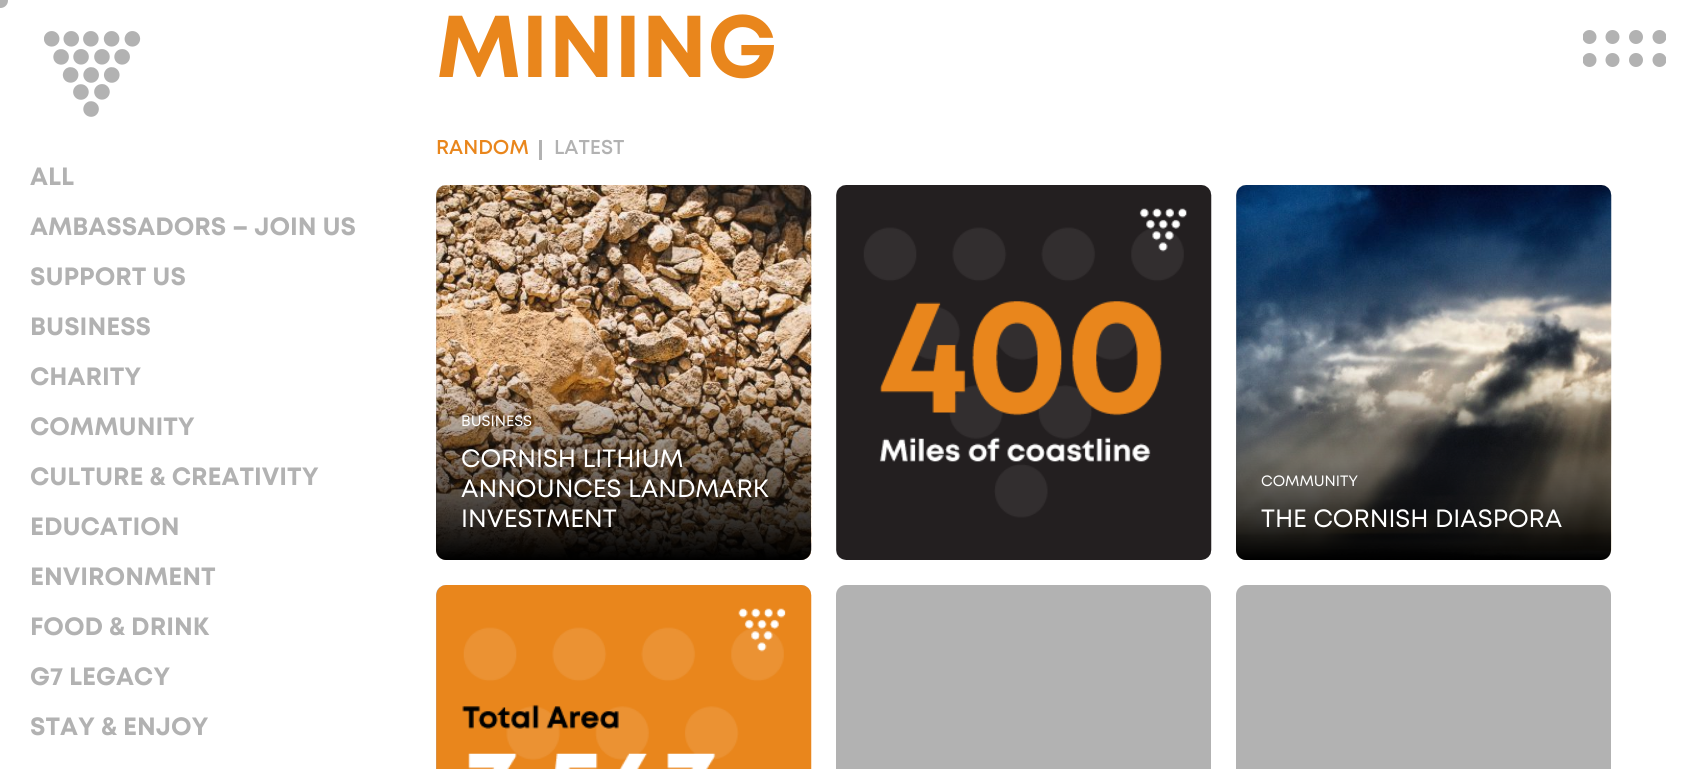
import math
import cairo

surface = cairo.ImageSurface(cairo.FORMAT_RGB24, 1696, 769)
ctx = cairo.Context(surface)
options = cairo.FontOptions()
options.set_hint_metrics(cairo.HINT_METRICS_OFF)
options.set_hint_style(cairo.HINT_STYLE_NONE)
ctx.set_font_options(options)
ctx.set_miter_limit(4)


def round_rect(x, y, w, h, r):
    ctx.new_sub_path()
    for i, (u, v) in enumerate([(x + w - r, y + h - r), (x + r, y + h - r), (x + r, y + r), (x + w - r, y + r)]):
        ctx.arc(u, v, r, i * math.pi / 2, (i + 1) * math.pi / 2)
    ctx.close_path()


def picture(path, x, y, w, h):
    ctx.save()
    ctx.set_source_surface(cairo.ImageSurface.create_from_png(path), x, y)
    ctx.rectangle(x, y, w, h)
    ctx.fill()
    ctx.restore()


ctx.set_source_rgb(1, 1, 1)
ctx.paint()
ctx.set_source_rgb(0.698, 0.698, 0.698)
ctx.arc(0.5, 0.5, 7.5, 0, 2 * math.pi)
ctx.fill()
ctx.select_font_face("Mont", cairo.FONT_SLANT_NORMAL, cairo.FONT_WEIGHT_BOLD)
ctx.set_font_size(25)
ctx.move_to(30, 185)
ctx.show_text("ALL")
ctx.move_to(30, 235)
ctx.show_text("AMBASSADORS – JOIN US")
ctx.move_to(30, 285)
ctx.show_text("SUPPORT US")
ctx.move_to(30, 335)
ctx.show_text("BUSINESS")
ctx.move_to(30, 385)
ctx.show_text("CHARITY")
ctx.move_to(30, 435)
ctx.show_text("COMMUNITY")
ctx.move_to(30, 485)
ctx.show_text("CULTURE & CREATIVITY")
ctx.move_to(30, 535)
ctx.show_text("EDUCATION")
ctx.move_to(30, 585)
ctx.show_text("ENVIRONMENT")
ctx.move_to(30, 635)
ctx.show_text("FOOD & DRINK")
ctx.move_to(30, 685)
ctx.show_text("G7 LEGACY")
ctx.move_to(30, 735)
ctx.show_text("STAY & ENJOY")
ctx.set_font_size(87.5)
ctx.set_source_rgb(0.914, 0.525, 0.11)
ctx.move_to(436, 77)
ctx.show_text("MINING")
ctx.select_font_face("Mont SemiBold")
ctx.set_font_size(20)
ctx.move_to(436, 154)
ctx.show_text("RANDOM")
ctx.set_source_rgb(0.698, 0.698, 0.698)
ctx.rectangle(539, 140, 3, 20)
ctx.fill()
ctx.move_to(554, 154)
ctx.show_text("LATEST")
round_rect(436, 185, 375, 375, 10)
ctx.fill()
picture("img1.png", 436, 185, 376, 375)
gradient = cairo.LinearGradient(624, 185, 624, 560)
gradient.add_color_stop_rgba(0.5, 0, 0, 0, 0)
gradient.add_color_stop_rgba(1, 0, 0, 0, 1)
ctx.set_source(gradient)
round_rect(436, 185, 375, 375, 10)
ctx.fill()
ctx.select_font_face("Mont")
ctx.set_font_size(15)
ctx.set_source_rgb(1, 1, 1)
ctx.move_to(461, 426)
ctx.show_text("BUSINESS")
ctx.set_font_size(25)
ctx.move_to(461, 467)
ctx.show_text("CORNISH LITHIUM")
ctx.move_to(461, 497)
ctx.show_text("ANNOUNCES LANDMARK")
ctx.move_to(461, 527)
ctx.show_text("INVESTMENT")
ctx.set_source_rgb(0.698, 0.698, 0.698)
round_rect(836, 185, 375, 375, 10)
ctx.fill()
picture("img2.png", 836, 185, 376, 375)
round_rect(1236, 185, 375, 375, 10)
ctx.fill()
picture("img3.png", 1236, 185, 376, 375)
gradient = cairo.LinearGradient(1424, 185, 1424, 560)
gradient.add_color_stop_rgba(0.5, 0, 0, 0, 0)
gradient.add_color_stop_rgba(1, 0, 0, 0, 1)
ctx.set_source(gradient)
round_rect(1236, 185, 375, 375, 10)
ctx.fill()
ctx.set_font_size(15)
ctx.set_source_rgb(1, 1, 1)
ctx.move_to(1261, 486)
ctx.show_text("COMMUNITY")
ctx.set_font_size(25)
ctx.move_to(1261, 527)
ctx.show_text("THE CORNISH DIASPORA")
ctx.set_source_rgb(0.698, 0.698, 0.698)
round_rect(436, 585, 375, 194, 10)
ctx.fill()
picture("img4.png", 436, 585, 376, 184)
round_rect(836, 585, 375, 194, 10)
ctx.fill()
round_rect(1236, 585, 375, 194, 10)
ctx.fill()
picture("img5.png", 44, 31, 97, 86)
ctx.arc(1612.5, 37, 7, 0, 2 * math.pi)
ctx.fill()
ctx.save()
ctx.rectangle(1583, 30, 83, 38)
ctx.clip()
ctx.arc(1589.5, 37, 7, 0, 2 * math.pi)
ctx.fill()
ctx.restore()
ctx.arc(1636, 37, 7, 0, 2 * math.pi)
ctx.fill()
ctx.save()
ctx.rectangle(1583, 30, 83, 38)
ctx.clip()
ctx.arc(1659.5, 37, 7, 0, 2 * math.pi)
ctx.fill()
ctx.restore()
ctx.arc(1612.5, 60, 7, 0, 2 * math.pi)
ctx.fill()
ctx.save()
ctx.rectangle(1583, 30, 83, 38)
ctx.clip()
ctx.arc(1589.5, 60, 7, 0, 2 * math.pi)
ctx.fill()
ctx.restore()
ctx.arc(1636, 60, 7, 0, 2 * math.pi)
ctx.fill()
ctx.save()
ctx.rectangle(1583, 30, 83, 38)
ctx.clip()
ctx.arc(1659.5, 60, 7, 0, 2 * math.pi)
ctx.fill()
ctx.restore()
surface.write_to_png("page.png")
